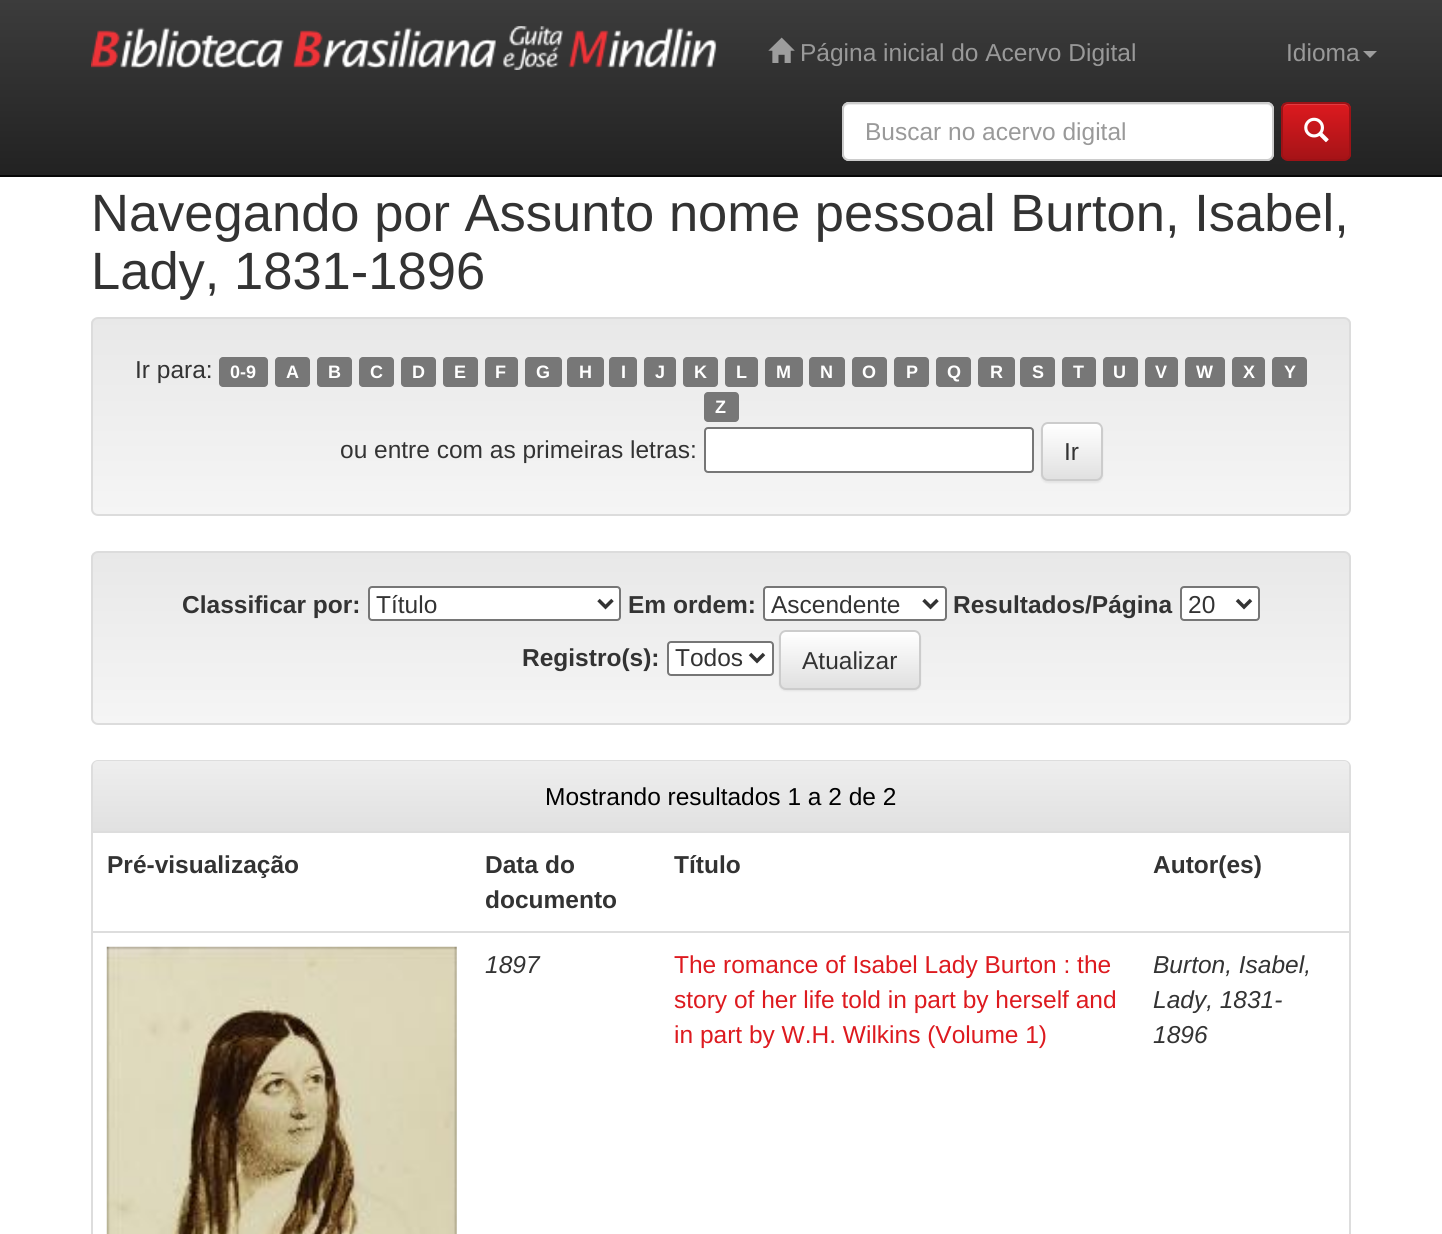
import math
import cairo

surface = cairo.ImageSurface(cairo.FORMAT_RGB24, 1442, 1234)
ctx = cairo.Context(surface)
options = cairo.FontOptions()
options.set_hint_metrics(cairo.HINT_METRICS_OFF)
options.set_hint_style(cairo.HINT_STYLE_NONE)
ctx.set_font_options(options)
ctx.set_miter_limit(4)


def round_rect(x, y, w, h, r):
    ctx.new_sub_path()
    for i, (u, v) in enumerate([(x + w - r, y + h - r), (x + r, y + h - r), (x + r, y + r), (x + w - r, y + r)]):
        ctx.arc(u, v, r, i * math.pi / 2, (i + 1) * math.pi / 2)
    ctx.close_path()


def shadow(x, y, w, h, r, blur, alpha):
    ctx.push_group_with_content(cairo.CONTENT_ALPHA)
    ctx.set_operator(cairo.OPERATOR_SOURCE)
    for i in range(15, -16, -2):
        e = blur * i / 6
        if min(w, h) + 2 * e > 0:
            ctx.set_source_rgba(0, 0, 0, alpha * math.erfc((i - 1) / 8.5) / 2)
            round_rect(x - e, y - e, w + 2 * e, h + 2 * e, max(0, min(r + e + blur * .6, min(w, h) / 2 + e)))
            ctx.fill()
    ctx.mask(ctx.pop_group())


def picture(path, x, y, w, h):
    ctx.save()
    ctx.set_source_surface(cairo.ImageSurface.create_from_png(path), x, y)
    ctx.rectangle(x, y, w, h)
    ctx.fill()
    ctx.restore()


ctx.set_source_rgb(1, 1, 1)
ctx.paint()
gradient = cairo.LinearGradient(721, 0, 721, 175)
gradient.add_color_stop_rgba(0, 0.235, 0.235, 0.235, 1)
gradient.add_color_stop_rgba(1, 0.133, 0.133, 0.133, 1)
ctx.set_source(gradient)
ctx.rectangle(0, 0, 1442, 175)
ctx.fill()
ctx.set_source_rgb(0.031, 0.031, 0.031)
ctx.rectangle(0, 175, 1442, 2)
ctx.fill()
picture("img1.png", 91, 26, 626, 44)
picture("img2.png", 768, 37, 27, 26)
ctx.select_font_face("Liberation Sans")
ctx.set_font_size(24.5)
ctx.set_source_rgb(0.6, 0.6, 0.6)
ctx.move_to(800, 61)
ctx.show_text("Página inicial do Acervo Digital")
ctx.move_to(1286, 61)
ctx.show_text("Idioma")
ctx.set_source_rgb(0.616, 0.616, 0.616)
ctx.new_path()
ctx.move_to(1363, 51)
ctx.line_to(1377, 51)
ctx.line_to(1370, 58)
ctx.close_path()
ctx.fill()
ctx.set_source_rgb(1, 1, 1)
round_rect(842, 102, 432, 59, 7)
ctx.fill()
ctx.set_source_rgb(0.925, 0.925, 0.925)
ctx.new_path()
ctx.move_to(849, 105)
ctx.line_to(1267, 105)
ctx.curve_to(1270, 105, 1272, 107, 1272, 110)
ctx.curve_to(1272, 107, 1271, 103, 1267, 103)
ctx.line_to(849, 103)
ctx.curve_to(845, 103, 844, 107, 844, 110)
ctx.curve_to(844, 107, 846, 105, 849, 105)
ctx.close_path()
ctx.fill()
round_rect(843, 103, 430, 57, 6)
ctx.set_source_rgb(0.8, 0.8, 0.8)
ctx.stroke()
ctx.set_source_rgb(0.6, 0.6, 0.6)
ctx.move_to(865, 140)
ctx.show_text("Buscar no acervo digital")
ctx.save()
round_rect(1281, 102, 70, 59, 7)
ctx.clip()
gradient = cairo.LinearGradient(1316, 103, 1316, 159)
gradient.add_color_stop_rgba(0, 0.867, 0.102, 0.122, 1)
gradient.add_color_stop_rgba(1, 0.651, 0.075, 0.09, 1)
ctx.set_source(gradient)
ctx.rectangle(1281, 103, 70, 56)
ctx.fill()
ctx.restore()
ctx.set_source_rgb(0.886, 0.235, 0.255)
ctx.new_path()
ctx.move_to(1288, 105)
ctx.line_to(1344, 105)
ctx.curve_to(1347, 105, 1349, 107, 1349, 110)
ctx.curve_to(1349, 101, 1342, 103, 1335, 103)
ctx.line_to(1297, 103)
ctx.curve_to(1290, 103, 1283, 101, 1283, 110)
ctx.curve_to(1283, 107, 1285, 105, 1288, 105)
ctx.close_path()
ctx.fill()
round_rect(1282, 103, 68, 57, 6)
ctx.set_source_rgb(0.616, 0.071, 0.086)
ctx.stroke()
picture("img3.png", 1304, 117, 25, 26)
ctx.set_font_size(52.5)
ctx.set_source_rgb(0.2, 0.2, 0.2)
ctx.move_to(91, 231)
ctx.show_text("Navegando por Assunto nome pessoal Burton, Isabel,")
ctx.move_to(91, 289)
ctx.show_text("Lady, 1831-1896")
ctx.save()
round_rect(91, 317, 1260, 199, 7)
ctx.clip()
gradient = cairo.LinearGradient(721, 318, 721, 515)
gradient.add_color_stop_rgba(0, 0.91, 0.91, 0.91, 1)
gradient.add_color_stop_rgba(1, 0.961, 0.961, 0.961, 1)
ctx.set_source(gradient)
ctx.rectangle(91, 319, 1260, 196)
ctx.fill()
ctx.restore()
round_rect(92, 318, 1258, 197, 6)
ctx.set_source_rgb(0.863, 0.863, 0.863)
ctx.stroke()
ctx.set_font_size(24.5)
ctx.set_source_rgb(0.2, 0.2, 0.2)
ctx.move_to(135, 378)
ctx.show_text("Ir para:")
ctx.set_source_rgb(0.467, 0.467, 0.467)
round_rect(219, 357, 49, 30, 4)
ctx.fill()
ctx.select_font_face("Liberation Sans", cairo.FONT_SLANT_NORMAL, cairo.FONT_WEIGHT_BOLD)
ctx.set_font_size(18)
ctx.set_source_rgb(1, 1, 1)
ctx.move_to(230, 378)
ctx.show_text("0-9")
ctx.set_source_rgb(0.467, 0.467, 0.467)
round_rect(275, 357, 35, 30, 4)
ctx.fill()
ctx.set_source_rgb(1, 1, 1)
ctx.move_to(286, 378)
ctx.show_text("A")
ctx.set_source_rgb(0.467, 0.467, 0.467)
round_rect(317, 357, 35, 30, 4)
ctx.fill()
ctx.set_source_rgb(1, 1, 1)
ctx.move_to(328, 378)
ctx.show_text("B")
ctx.set_source_rgb(0.467, 0.467, 0.467)
round_rect(359, 357, 35, 30, 4)
ctx.fill()
ctx.set_source_rgb(1, 1, 1)
ctx.move_to(370, 378)
ctx.show_text("C")
ctx.set_source_rgb(0.467, 0.467, 0.467)
round_rect(401, 357, 35, 30, 4)
ctx.fill()
ctx.set_source_rgb(1, 1, 1)
ctx.move_to(412, 378)
ctx.show_text("D")
ctx.set_source_rgb(0.467, 0.467, 0.467)
round_rect(443, 357, 35, 30, 4)
ctx.fill()
ctx.set_source_rgb(1, 1, 1)
ctx.move_to(454, 378)
ctx.show_text("E")
ctx.set_source_rgb(0.467, 0.467, 0.467)
round_rect(485, 357, 33, 30, 4)
ctx.fill()
ctx.set_source_rgb(1, 1, 1)
ctx.move_to(495, 378)
ctx.show_text("F")
ctx.set_source_rgb(0.467, 0.467, 0.467)
round_rect(525, 357, 37, 30, 4)
ctx.fill()
ctx.set_source_rgb(1, 1, 1)
ctx.move_to(536, 378)
ctx.show_text("G")
ctx.set_source_rgb(0.467, 0.467, 0.467)
round_rect(567, 357, 37, 30, 4)
ctx.fill()
ctx.set_source_rgb(1, 1, 1)
ctx.move_to(579, 378)
ctx.show_text("H")
ctx.set_source_rgb(0.467, 0.467, 0.467)
round_rect(609, 357, 28, 30, 4)
ctx.fill()
ctx.set_source_rgb(1, 1, 1)
ctx.move_to(621, 378)
ctx.show_text("I")
ctx.set_source_rgb(0.467, 0.467, 0.467)
round_rect(644, 357, 32, 30, 4)
ctx.fill()
ctx.set_source_rgb(1, 1, 1)
ctx.move_to(655, 378)
ctx.show_text("J")
ctx.set_source_rgb(0.467, 0.467, 0.467)
round_rect(683, 357, 35, 30, 4)
ctx.fill()
ctx.set_source_rgb(1, 1, 1)
ctx.move_to(694, 378)
ctx.show_text("K")
ctx.set_source_rgb(0.467, 0.467, 0.467)
round_rect(725, 357, 33, 30, 4)
ctx.fill()
ctx.set_source_rgb(1, 1, 1)
ctx.move_to(736, 378)
ctx.show_text("L")
ctx.set_source_rgb(0.467, 0.467, 0.467)
round_rect(765, 357, 38, 30, 4)
ctx.fill()
ctx.set_source_rgb(1, 1, 1)
ctx.move_to(776, 378)
ctx.show_text("M")
ctx.set_source_rgb(0.467, 0.467, 0.467)
round_rect(809, 357, 36, 30, 4)
ctx.fill()
ctx.set_source_rgb(1, 1, 1)
ctx.move_to(820, 378)
ctx.show_text("N")
ctx.set_source_rgb(0.467, 0.467, 0.467)
round_rect(852, 357, 35, 30, 4)
ctx.fill()
ctx.set_source_rgb(1, 1, 1)
ctx.move_to(862, 378)
ctx.show_text("O")
ctx.set_source_rgb(0.467, 0.467, 0.467)
round_rect(894, 357, 35, 30, 4)
ctx.fill()
ctx.set_source_rgb(1, 1, 1)
ctx.move_to(906, 378)
ctx.show_text("P")
ctx.set_source_rgb(0.467, 0.467, 0.467)
round_rect(936, 357, 35, 30, 4)
ctx.fill()
ctx.set_source_rgb(1, 1, 1)
ctx.move_to(947, 378)
ctx.show_text("Q")
ctx.set_source_rgb(0.467, 0.467, 0.467)
round_rect(978, 357, 37, 30, 4)
ctx.fill()
ctx.set_source_rgb(1, 1, 1)
ctx.move_to(990, 378)
ctx.show_text("R")
ctx.set_source_rgb(0.467, 0.467, 0.467)
round_rect(1020, 357, 35, 30, 4)
ctx.fill()
ctx.set_source_rgb(1, 1, 1)
ctx.move_to(1032, 378)
ctx.show_text("S")
ctx.set_source_rgb(0.467, 0.467, 0.467)
round_rect(1062, 357, 34, 30, 4)
ctx.fill()
ctx.set_source_rgb(1, 1, 1)
ctx.move_to(1073, 378)
ctx.show_text("T")
ctx.set_source_rgb(0.467, 0.467, 0.467)
round_rect(1103, 357, 35, 30, 4)
ctx.fill()
ctx.set_source_rgb(1, 1, 1)
ctx.move_to(1113, 378)
ctx.show_text("U")
ctx.set_source_rgb(0.467, 0.467, 0.467)
round_rect(1145, 357, 33, 30, 4)
ctx.fill()
ctx.set_source_rgb(1, 1, 1)
ctx.move_to(1155, 378)
ctx.show_text("V")
ctx.set_source_rgb(0.467, 0.467, 0.467)
round_rect(1185, 357, 40, 30, 4)
ctx.fill()
ctx.set_source_rgb(1, 1, 1)
ctx.move_to(1196, 378)
ctx.show_text("W")
ctx.set_source_rgb(0.467, 0.467, 0.467)
round_rect(1232, 357, 33, 30, 4)
ctx.fill()
ctx.set_source_rgb(1, 1, 1)
ctx.move_to(1243, 378)
ctx.show_text("X")
ctx.set_source_rgb(0.467, 0.467, 0.467)
round_rect(1272, 357, 35, 30, 4)
ctx.fill()
ctx.set_source_rgb(1, 1, 1)
ctx.move_to(1284, 378)
ctx.show_text("Y")
ctx.set_source_rgb(0.467, 0.467, 0.467)
round_rect(704, 392, 35, 30, 4)
ctx.fill()
ctx.set_source_rgb(1, 1, 1)
ctx.move_to(715, 413)
ctx.show_text("Z")
ctx.select_font_face("Liberation Sans")
ctx.set_font_size(24.5)
ctx.set_source_rgb(0.2, 0.2, 0.2)
ctx.move_to(340, 458)
ctx.show_text("ou entre com as primeiras letras:")
ctx.set_source_rgb(1, 1, 1)
round_rect(705, 428, 328, 44, 3)
ctx.fill_preserve()
ctx.set_source_rgb(0.463, 0.463, 0.463)
ctx.stroke()
ctx.set_source_rgb(0, 0, 0)
shadow(1041, 424, 62, 59, 7, 1, 0.07)
ctx.save()
round_rect(1041, 422, 62, 59, 7)
ctx.clip()
gradient = cairo.LinearGradient(1072, 424, 1072, 480)
gradient.add_color_stop_rgba(0, 1, 1, 1, 1)
gradient.add_color_stop_rgba(1, 0.878, 0.878, 0.878, 1)
ctx.set_source(gradient)
ctx.rectangle(1041, 424, 62, 56)
ctx.fill()
ctx.restore()
round_rect(1042, 423, 60, 57, 6)
ctx.set_source_rgb(0.8, 0.8, 0.8)
ctx.stroke()
ctx.set_source_rgb(0.2, 0.2, 0.2)
ctx.move_to(1064, 460)
ctx.show_text("Ir")
ctx.save()
round_rect(91, 551, 1260, 174, 7)
ctx.clip()
gradient = cairo.LinearGradient(721, 553, 721, 723)
gradient.add_color_stop_rgba(0, 0.91, 0.91, 0.91, 1)
gradient.add_color_stop_rgba(1, 0.961, 0.961, 0.961, 1)
ctx.set_source(gradient)
ctx.rectangle(91, 553, 1260, 170)
ctx.fill()
ctx.restore()
round_rect(92, 552, 1258, 172, 6)
ctx.set_source_rgb(0.863, 0.863, 0.863)
ctx.stroke()
ctx.select_font_face("Liberation Sans", cairo.FONT_SLANT_NORMAL, cairo.FONT_WEIGHT_BOLD)
ctx.set_source_rgb(0.2, 0.2, 0.2)
ctx.move_to(182, 613)
ctx.show_text("Classificar por:")
ctx.set_source_rgb(1, 1, 1)
round_rect(369, 587, 251, 33, 3)
ctx.fill_preserve()
ctx.set_source_rgb(0.463, 0.463, 0.463)
ctx.stroke()
ctx.new_path()
ctx.move_to(598.5, 600)
ctx.line_to(605.5, 607)
ctx.line_to(612.5, 600)
ctx.set_source_rgb(0.2, 0.2, 0.2)
ctx.set_line_width(3.5)
ctx.stroke()
ctx.select_font_face("Liberation Sans")
ctx.move_to(376, 613)
ctx.show_text("Título")
ctx.select_font_face("Liberation Sans", cairo.FONT_SLANT_NORMAL, cairo.FONT_WEIGHT_BOLD)
ctx.move_to(628, 613)
ctx.show_text("Em ordem:")
ctx.set_source_rgb(1, 1, 1)
round_rect(764, 587, 182, 33, 3)
ctx.fill_preserve()
ctx.set_source_rgb(0.463, 0.463, 0.463)
ctx.set_line_width(2)
ctx.stroke()
ctx.new_path()
ctx.move_to(923.5, 600)
ctx.line_to(930.5, 607)
ctx.line_to(937.5, 600)
ctx.set_source_rgb(0.2, 0.2, 0.2)
ctx.set_line_width(3.5)
ctx.stroke()
ctx.select_font_face("Liberation Sans")
ctx.move_to(771, 613)
ctx.show_text("Ascendente")
ctx.select_font_face("Liberation Sans", cairo.FONT_SLANT_NORMAL, cairo.FONT_WEIGHT_BOLD)
ctx.move_to(953, 613)
ctx.show_text("Resultados/Página")
ctx.set_source_rgb(1, 1, 1)
round_rect(1181, 587, 78, 33, 3)
ctx.fill_preserve()
ctx.set_source_rgb(0.463, 0.463, 0.463)
ctx.set_line_width(2)
ctx.stroke()
ctx.new_path()
ctx.move_to(1237, 600)
ctx.line_to(1244, 607)
ctx.line_to(1251, 600)
ctx.set_source_rgb(0.2, 0.2, 0.2)
ctx.set_line_width(3.5)
ctx.stroke()
ctx.select_font_face("Liberation Sans")
ctx.move_to(1188, 613)
ctx.show_text("20")
ctx.select_font_face("Liberation Sans", cairo.FONT_SLANT_NORMAL, cairo.FONT_WEIGHT_BOLD)
ctx.move_to(522, 666)
ctx.show_text("Registro(s):")
ctx.set_source_rgb(1, 1, 1)
round_rect(668, 642, 105, 33, 3)
ctx.fill_preserve()
ctx.set_source_rgb(0.463, 0.463, 0.463)
ctx.set_line_width(2)
ctx.stroke()
ctx.new_path()
ctx.move_to(750, 654)
ctx.line_to(757, 661)
ctx.line_to(764, 654)
ctx.set_source_rgb(0.2, 0.2, 0.2)
ctx.set_line_width(3.5)
ctx.stroke()
ctx.select_font_face("Liberation Sans")
ctx.move_to(675, 666)
ctx.show_text("Todos")
ctx.set_source_rgb(0, 0, 0)
shadow(779, 632, 142, 59, 7, 1, 0.07)
ctx.save()
round_rect(779, 630, 142, 60, 7)
ctx.clip()
gradient = cairo.LinearGradient(850, 632, 850, 688)
gradient.add_color_stop_rgba(0, 1, 1, 1, 1)
gradient.add_color_stop_rgba(1, 0.878, 0.878, 0.878, 1)
ctx.set_source(gradient)
ctx.rectangle(779, 632, 142, 56)
ctx.fill()
ctx.restore()
round_rect(780, 631, 140, 58, 6)
ctx.set_source_rgb(0.8, 0.8, 0.8)
ctx.set_line_width(2)
ctx.stroke()
ctx.set_source_rgb(0.2, 0.2, 0.2)
ctx.move_to(802, 669)
ctx.show_text("Atualizar")
round_rect(92, 761, 1258, 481, 6)
ctx.set_source_rgb(0.867, 0.867, 0.867)
ctx.stroke()
gradient = cairo.LinearGradient(721, 761, 721, 831)
gradient.add_color_stop_rgba(0, 0.933, 0.933, 0.933, 1)
gradient.add_color_stop_rgba(1, 0.882, 0.882, 0.882, 1)
ctx.set_source(gradient)
ctx.new_path()
ctx.move_to(98, 761)
ctx.line_to(1344, 761)
ctx.curve_to(1347, 761, 1349, 763, 1349, 766)
ctx.line_to(1349, 831)
ctx.line_to(93, 831)
ctx.line_to(93, 766)
ctx.curve_to(93, 763, 95, 761, 98, 761)
ctx.close_path()
ctx.fill()
ctx.set_source_rgb(0.867, 0.867, 0.867)
ctx.rectangle(93, 831, 1256, 2)
ctx.fill()
ctx.set_source_rgb(0, 0, 0)
ctx.move_to(545, 805)
ctx.show_text("Mostrando resultados 1 a 2 de 2")
ctx.select_font_face("Liberation Sans", cairo.FONT_SLANT_NORMAL, cairo.FONT_WEIGHT_BOLD)
ctx.set_source_rgb(0.2, 0.2, 0.2)
ctx.move_to(107, 873)
ctx.show_text("Pré-visualização")
ctx.move_to(485, 873)
ctx.show_text("Data do")
ctx.move_to(485, 908)
ctx.show_text("documento")
ctx.move_to(674, 873)
ctx.show_text("Título")
ctx.move_to(1153, 873)
ctx.show_text("Autor(es)")
picture("img4.png", 106, 946, 351, 288)
ctx.select_font_face("Liberation Sans", cairo.FONT_SLANT_ITALIC)
ctx.move_to(485, 973)
ctx.show_text("1897")
ctx.select_font_face("Liberation Sans")
ctx.set_source_rgb(0.867, 0.102, 0.122)
ctx.move_to(674, 973)
ctx.show_text("The romance of Isabel Lady Burton : the")
ctx.move_to(674, 1008)
ctx.show_text("story of her life told in part by herself and")
ctx.move_to(674, 1043)
ctx.show_text("in part by W.H. Wilkins (Volume 1)")
ctx.set_source_rgb(0.867, 0.867, 0.867)
ctx.rectangle(93, 931, 1258, 2)
ctx.fill()
ctx.select_font_face("Liberation Sans", cairo.FONT_SLANT_ITALIC)
ctx.set_source_rgb(0.2, 0.2, 0.2)
ctx.move_to(1153, 973)
ctx.show_text("Burton, Isabel,")
ctx.move_to(1153, 1008)
ctx.show_text("Lady, 1831-")
ctx.move_to(1153, 1043)
ctx.show_text("1896")
surface.write_to_png("page.png")
